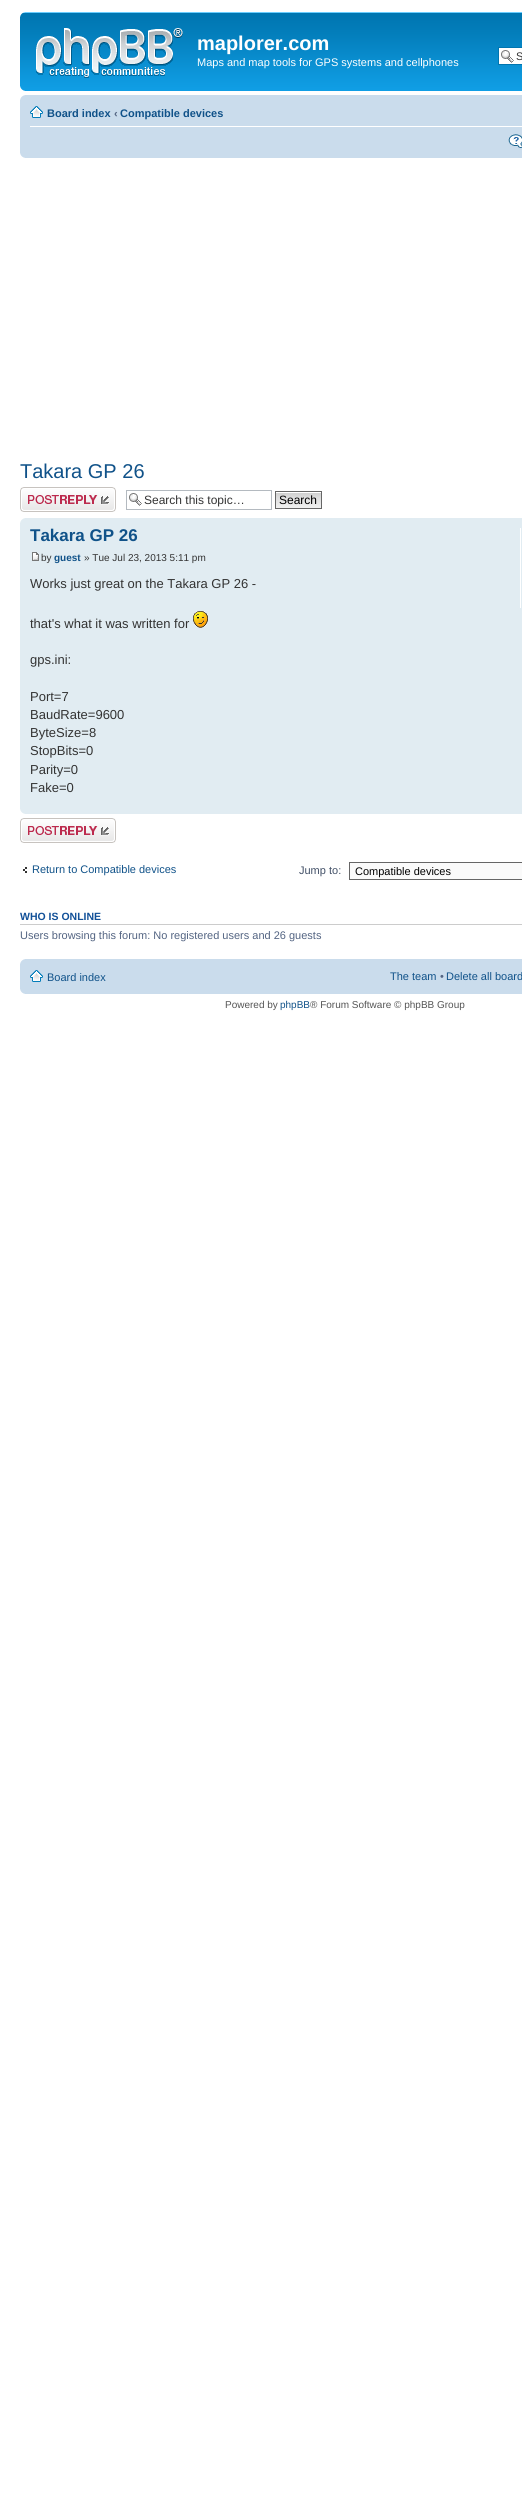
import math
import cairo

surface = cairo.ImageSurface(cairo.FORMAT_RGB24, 522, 2513)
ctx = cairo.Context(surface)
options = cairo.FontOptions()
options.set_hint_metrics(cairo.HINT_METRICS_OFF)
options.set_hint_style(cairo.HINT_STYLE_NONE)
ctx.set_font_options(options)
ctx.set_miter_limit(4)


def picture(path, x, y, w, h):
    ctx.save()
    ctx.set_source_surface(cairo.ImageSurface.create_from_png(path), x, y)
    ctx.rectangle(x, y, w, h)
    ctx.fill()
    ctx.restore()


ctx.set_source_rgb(1, 1, 1)
ctx.paint()
picture("img1.png", 20, 12, 502, 79)
picture("img2.png", 20, 12, 5, 5)
picture("img3.png", 36, 28, 147, 50)
ctx.select_font_face("Liberation Sans", cairo.FONT_SLANT_NORMAL, cairo.FONT_WEIGHT_BOLD)
ctx.set_font_size(20)
ctx.set_source_rgb(1, 1, 1)
ctx.move_to(197, 50)
ctx.show_text("maplorer.com")
ctx.select_font_face("Liberation Sans")
ctx.set_font_size(11)
ctx.move_to(197, 66)
ctx.show_text("Maps and map tools for GPS systems and cellphones")
ctx.rectangle(499, 48, 23, 16)
ctx.fill()
picture("img4.png", 501, 50, 13, 13)
ctx.rectangle(498.5, 47.5, 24, 17)
ctx.set_source_rgb(0, 0.459, 0.69)
ctx.set_line_width(1)
ctx.stroke()
ctx.set_source_rgb(0.2, 0.2, 0.2)
ctx.move_to(516, 60)
ctx.show_text("S")
picture("img5.png", 20, 86, 5, 5)
ctx.set_source_rgb(0.792, 0.863, 0.922)
ctx.rectangle(20, 95, 502, 63)
ctx.fill()
picture("img6.png", 20, 95, 5, 5)
ctx.set_source_rgb(1, 1, 1)
ctx.rectangle(30, 126, 492, 1)
ctx.fill()
picture("img7.png", 30, 106, 13, 12)
ctx.select_font_face("Liberation Sans", cairo.FONT_SLANT_NORMAL, cairo.FONT_WEIGHT_BOLD)
ctx.set_source_rgb(0.063, 0.322, 0.537)
ctx.move_to(47, 117)
ctx.show_text("Board index")
ctx.set_source_rgb(0.325, 0.392, 0.51)
ctx.move_to(114, 117)
ctx.show_text("‹")
ctx.set_source_rgb(0.063, 0.322, 0.537)
ctx.move_to(120, 117)
ctx.show_text("Compatible devices")
picture("img8.png", 508, 134, 14, 14)
picture("img9.png", 20, 153, 5, 5)
ctx.select_font_face("Liberation Sans")
ctx.set_font_size(20)
ctx.move_to(20, 478)
ctx.show_text("Takara GP 26")
picture("img10.png", 20, 487, 96, 25)
picture("img4.png", 129, 493, 13, 13)
ctx.rectangle(126.5, 490.5, 145, 19)
ctx.set_source_rgb(0.706, 0.729, 0.753)
ctx.stroke()
ctx.set_font_size(12)
ctx.set_source_rgb(0.2, 0.2, 0.2)
ctx.move_to(144, 504)
ctx.show_text("Search this topic…")
picture("img11.png", 276, 492, 45, 16)
ctx.rectangle(275.5, 491.5, 46, 17)
ctx.set_source_rgb(0.4, 0.4, 0.4)
ctx.stroke()
ctx.set_source_rgb(0, 0, 0)
ctx.move_to(279, 504)
ctx.show_text("Search")
ctx.set_source_rgb(0.882, 0.922, 0.949)
ctx.rectangle(20, 518, 502, 296)
ctx.fill()
picture("img12.png", 20, 518, 5, 5)
ctx.select_font_face("Liberation Sans", cairo.FONT_SLANT_NORMAL, cairo.FONT_WEIGHT_BOLD)
ctx.set_font_size(17)
ctx.set_source_rgb(0.063, 0.322, 0.537)
ctx.move_to(30, 541)
ctx.show_text("Takara GP 26")
picture("img13.png", 32, 552, 7, 9)
ctx.select_font_face("Liberation Sans")
ctx.set_font_size(10)
ctx.set_source_rgb(0.2, 0.2, 0.2)
ctx.move_to(41, 561)
ctx.show_text("by")
ctx.select_font_face("Liberation Sans", cairo.FONT_SLANT_NORMAL, cairo.FONT_WEIGHT_BOLD)
ctx.set_source_rgb(0.063, 0.322, 0.537)
ctx.move_to(54, 561)
ctx.show_text("guest")
ctx.select_font_face("Liberation Sans")
ctx.set_source_rgb(0.2, 0.2, 0.2)
ctx.move_to(84, 561)
ctx.show_text("» Tue Jul 23, 2013 5:11 pm")
ctx.set_font_size(13)
ctx.move_to(30, 588)
ctx.show_text("Works just great on the Takara GP 26 -")
ctx.move_to(30, 628)
ctx.show_text("that's what it was written for")
picture("img14.png", 193, 611, 15, 17)
ctx.move_to(30, 664)
ctx.show_text("gps.ini:")
ctx.move_to(30, 701)
ctx.show_text("Port=7")
ctx.move_to(30, 719)
ctx.show_text("BaudRate=9600")
ctx.move_to(30, 737)
ctx.show_text("ByteSize=8")
ctx.move_to(30, 755)
ctx.show_text("StopBits=0")
ctx.move_to(30, 774)
ctx.show_text("Parity=0")
ctx.move_to(30, 792)
ctx.show_text("Fake=0")
ctx.set_source_rgb(1, 1, 1)
ctx.rectangle(520, 528, 1, 80)
ctx.fill()
picture("img15.png", 20, 809, 5, 5)
picture("img10.png", 20, 818, 96, 25)
picture("img16.png", 23, 867, 4, 6)
ctx.set_font_size(11)
ctx.set_source_rgb(0.063, 0.322, 0.537)
ctx.move_to(32, 873)
ctx.show_text("Return to Compatible devices")
ctx.set_source_rgb(0.259, 0.314, 0.404)
ctx.move_to(299, 874)
ctx.show_text("Jump to:")
ctx.set_source_rgb(0.98, 0.98, 0.98)
ctx.rectangle(349.5, 862.5, 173, 17)
ctx.fill_preserve()
ctx.set_source_rgb(0.4, 0.4, 0.4)
ctx.stroke()
ctx.set_source_rgb(0, 0, 0)
ctx.move_to(355, 875)
ctx.show_text("Compatible devices")
ctx.set_source_rgb(0.8, 0.8, 0.8)
ctx.rectangle(20, 924, 502, 1)
ctx.fill()
ctx.select_font_face("Liberation Sans", cairo.FONT_SLANT_NORMAL, cairo.FONT_WEIGHT_BOLD)
ctx.set_font_size(10.5)
ctx.set_source_rgb(0.067, 0.314, 0.596)
ctx.move_to(20, 920)
ctx.show_text("WHO IS ONLINE")
ctx.select_font_face("Liberation Sans")
ctx.set_font_size(11)
ctx.set_source_rgb(0.325, 0.392, 0.51)
ctx.move_to(20, 939)
ctx.show_text("Users browsing this forum: No registered users and 26 guests")
ctx.set_source_rgb(0.792, 0.863, 0.922)
ctx.rectangle(20, 959, 502, 35)
ctx.fill()
picture("img6.png", 20, 959, 5, 5)
picture("img7.png", 30, 970, 13, 12)
ctx.set_source_rgb(0.063, 0.322, 0.537)
ctx.move_to(47, 981)
ctx.show_text("Board index")
ctx.move_to(390, 980)
ctx.show_text("The team")
ctx.set_source_rgb(0.325, 0.392, 0.51)
ctx.move_to(440, 980)
ctx.show_text("•")
ctx.set_source_rgb(0.063, 0.322, 0.537)
ctx.move_to(446, 980)
ctx.show_text("Delete all board")
picture("img9.png", 20, 989, 5, 5)
ctx.set_font_size(10)
ctx.set_source_rgb(0.333, 0.333, 0.333)
ctx.move_to(225, 1008)
ctx.show_text("Powered by")
ctx.set_source_rgb(0.063, 0.322, 0.537)
ctx.move_to(280, 1008)
ctx.show_text("phpBB")
ctx.set_source_rgb(0.333, 0.333, 0.333)
ctx.move_to(310, 1008)
ctx.show_text("® Forum Software © phpBB Group")
surface.write_to_png("page.png")
